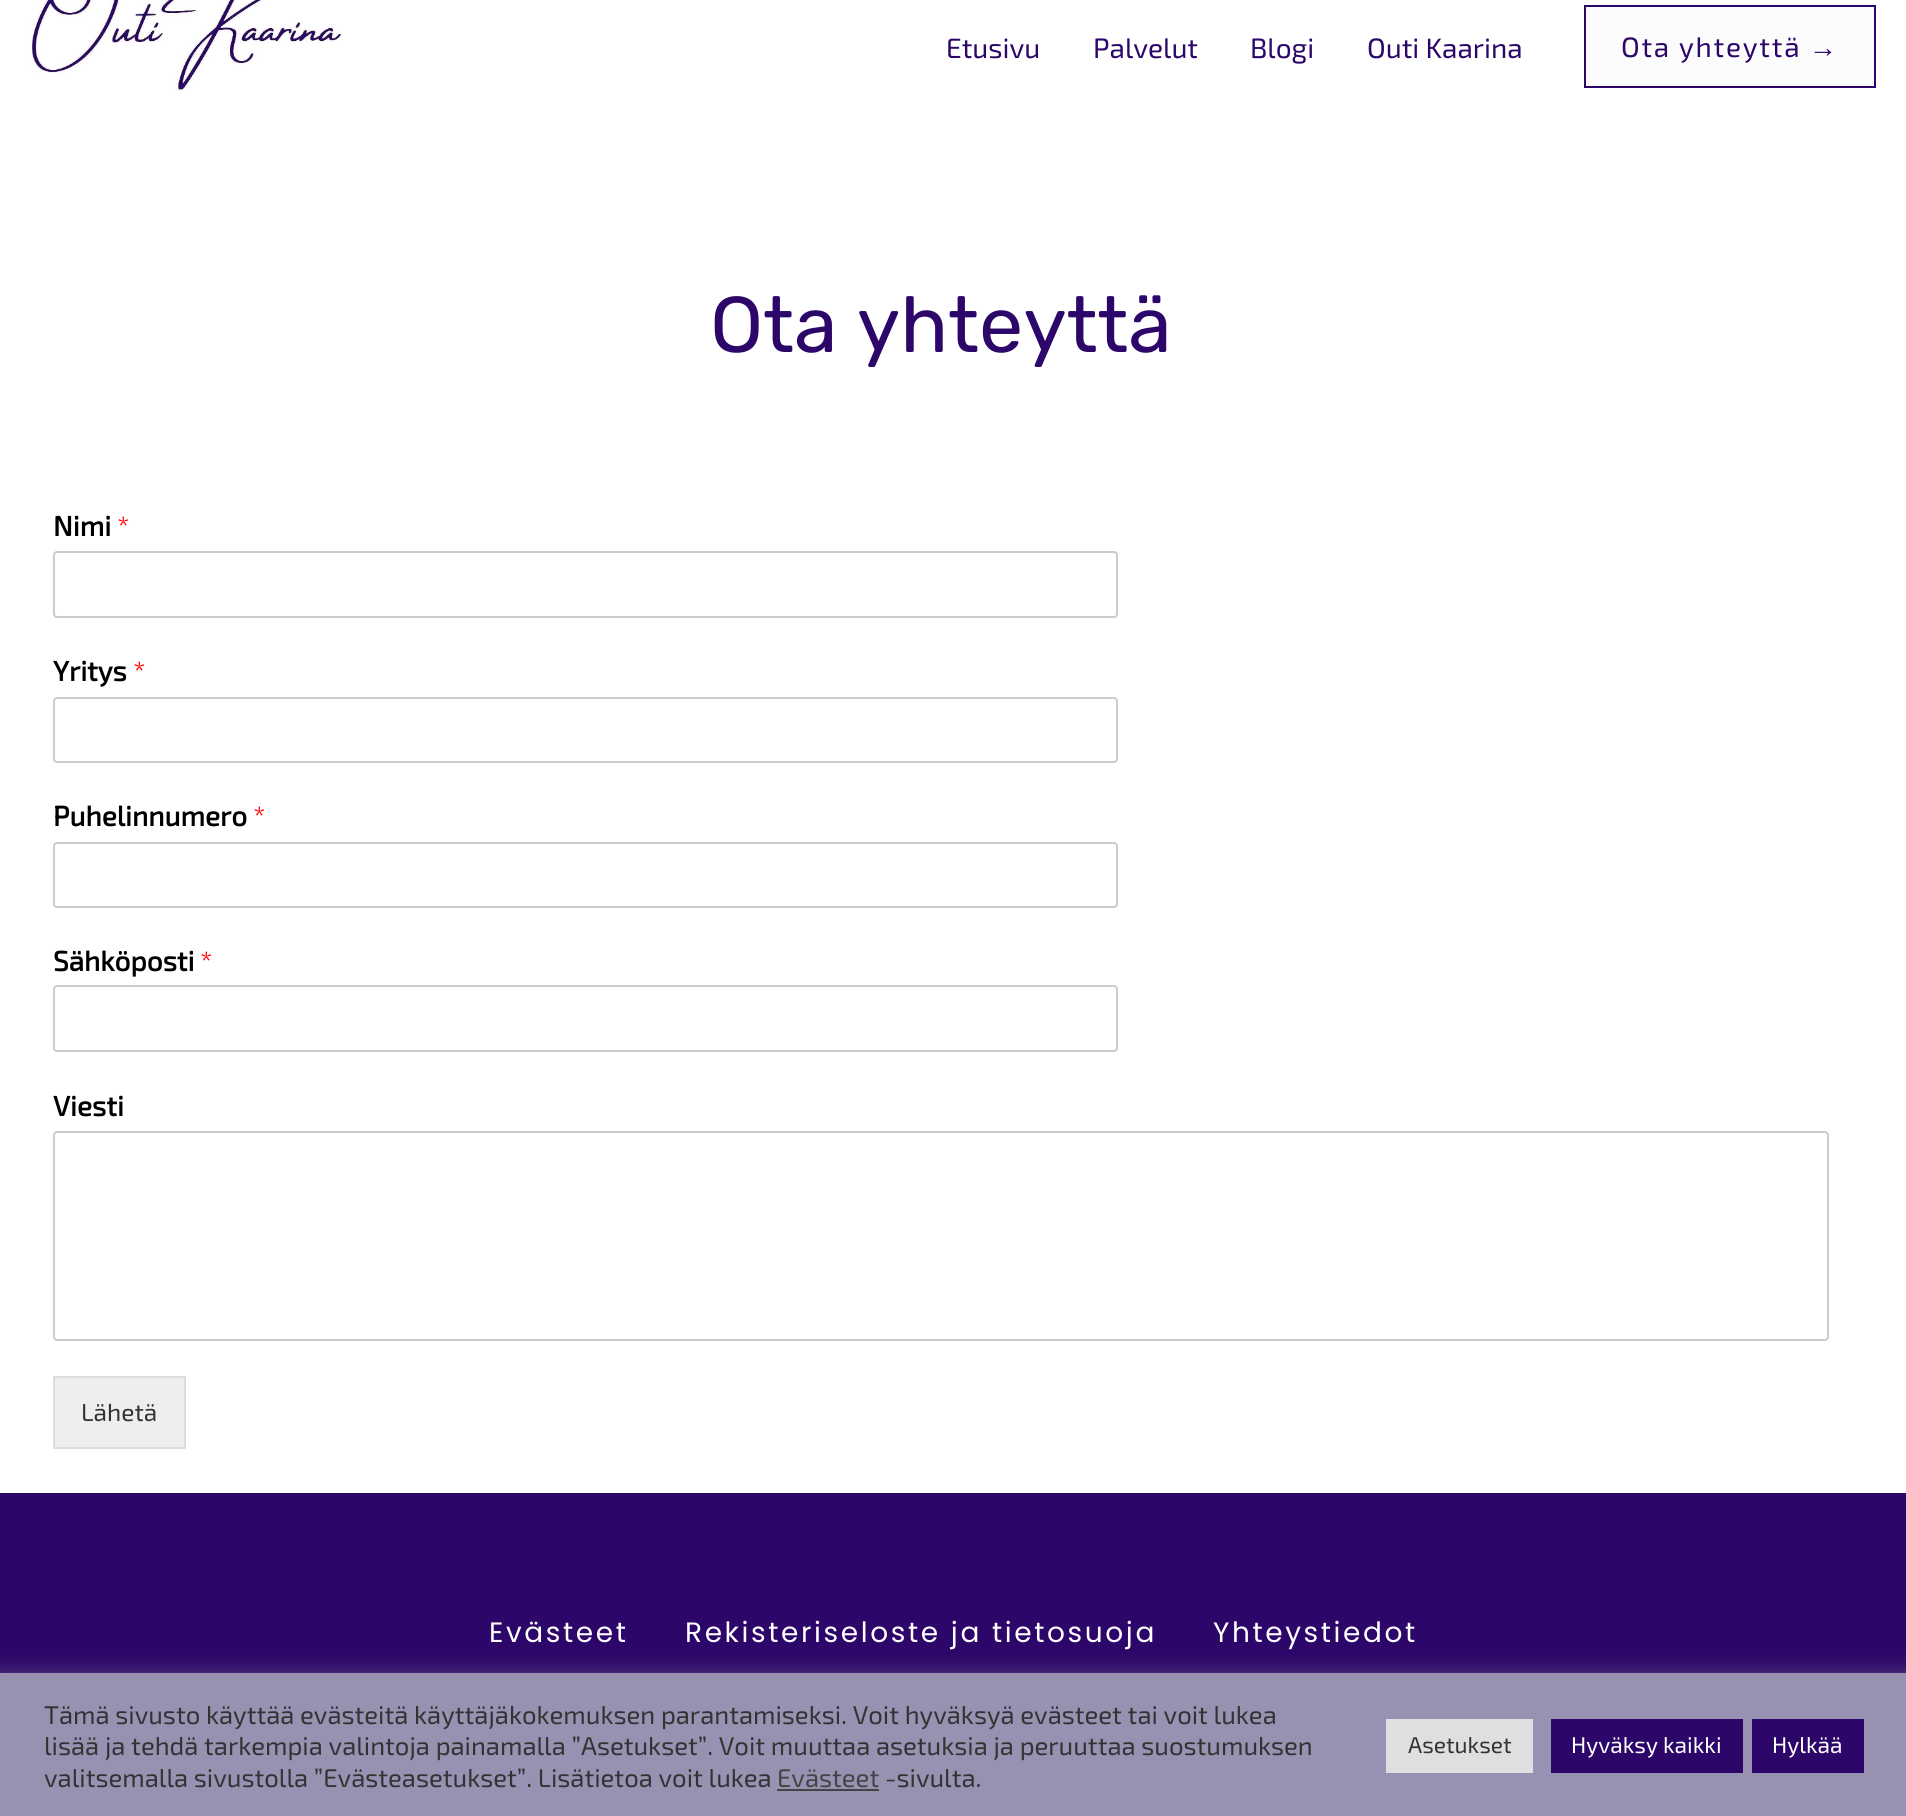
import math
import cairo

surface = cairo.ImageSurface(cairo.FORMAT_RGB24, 1906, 1816)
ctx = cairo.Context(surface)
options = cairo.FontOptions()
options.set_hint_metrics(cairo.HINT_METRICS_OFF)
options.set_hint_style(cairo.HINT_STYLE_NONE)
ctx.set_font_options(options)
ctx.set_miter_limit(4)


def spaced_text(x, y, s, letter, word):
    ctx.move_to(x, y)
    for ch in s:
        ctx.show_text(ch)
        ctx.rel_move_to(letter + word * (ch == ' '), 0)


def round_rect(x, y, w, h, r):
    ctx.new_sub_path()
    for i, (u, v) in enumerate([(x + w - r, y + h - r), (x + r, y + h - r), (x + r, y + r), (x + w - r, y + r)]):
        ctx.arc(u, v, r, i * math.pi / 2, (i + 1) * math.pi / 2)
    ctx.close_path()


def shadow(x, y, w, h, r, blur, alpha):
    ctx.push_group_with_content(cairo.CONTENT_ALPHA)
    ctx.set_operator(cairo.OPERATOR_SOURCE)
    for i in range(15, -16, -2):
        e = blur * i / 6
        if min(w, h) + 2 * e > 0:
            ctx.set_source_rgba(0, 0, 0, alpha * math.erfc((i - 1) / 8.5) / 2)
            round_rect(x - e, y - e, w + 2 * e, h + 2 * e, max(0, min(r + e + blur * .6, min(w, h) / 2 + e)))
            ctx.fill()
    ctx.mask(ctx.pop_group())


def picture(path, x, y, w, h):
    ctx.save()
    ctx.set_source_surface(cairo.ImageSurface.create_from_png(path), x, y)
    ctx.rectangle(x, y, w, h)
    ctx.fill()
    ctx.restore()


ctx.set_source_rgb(1, 1, 1)
ctx.paint()
picture("img1.png", 31, 0, 311, 92)
ctx.select_font_face("Exo 2")
ctx.set_font_size(28)
ctx.set_source_rgb(0.173, 0.031, 0.412)
ctx.move_to(946, 58)
ctx.show_text("Etusivu")
ctx.move_to(1093, 58)
ctx.show_text("Palvelut")
ctx.move_to(1250, 58)
ctx.show_text("Blogi")
ctx.move_to(1367, 58)
ctx.show_text("Outi Kaarina")
ctx.set_source_rgb(0.988, 0.988, 0.988)
ctx.rectangle(1585, 6, 290, 81)
ctx.fill_preserve()
ctx.set_source_rgb(0.173, 0.031, 0.412)
ctx.stroke()
spaced_text(1621, 57, "Ota yhteyttä", 1.75, 0)
ctx.select_font_face("Liberation Serif")
spaced_text(1809, 57, "→", 1.75, 0)
ctx.select_font_face("Rubik Light")
ctx.set_font_size(78.75)
ctx.move_to(710, 352)
ctx.show_text("Ota yhteyttä")
ctx.select_font_face("Exo 2", cairo.FONT_SLANT_NORMAL, cairo.FONT_WEIGHT_BOLD)
ctx.set_font_size(28)
ctx.set_source_rgb(0, 0, 0)
ctx.move_to(53, 536)
ctx.show_text("Nimi")
ctx.select_font_face("Exo 2")
ctx.set_source_rgb(1, 0, 0)
ctx.move_to(117, 536)
ctx.show_text("*")
round_rect(54, 552, 1063, 65, 3)
ctx.set_source_rgb(0.8, 0.8, 0.8)
ctx.stroke()
ctx.select_font_face("Exo 2", cairo.FONT_SLANT_NORMAL, cairo.FONT_WEIGHT_BOLD)
ctx.set_source_rgb(0, 0, 0)
ctx.move_to(53, 681)
ctx.show_text("Yritys")
ctx.select_font_face("Exo 2")
ctx.set_source_rgb(1, 0, 0)
ctx.move_to(133, 681)
ctx.show_text("*")
round_rect(54, 698, 1063, 64, 3)
ctx.set_source_rgb(0.8, 0.8, 0.8)
ctx.stroke()
ctx.select_font_face("Exo 2", cairo.FONT_SLANT_NORMAL, cairo.FONT_WEIGHT_BOLD)
ctx.set_source_rgb(0, 0, 0)
ctx.move_to(53, 826)
ctx.show_text("Puhelinnumero")
ctx.select_font_face("Exo 2")
ctx.set_source_rgb(1, 0, 0)
ctx.move_to(253, 826)
ctx.show_text("*")
round_rect(54, 843, 1063, 64, 3)
ctx.set_source_rgb(0.8, 0.8, 0.8)
ctx.stroke()
ctx.select_font_face("Exo 2", cairo.FONT_SLANT_NORMAL, cairo.FONT_WEIGHT_BOLD)
ctx.set_source_rgb(0, 0, 0)
ctx.move_to(53, 971)
ctx.show_text("Sähköposti")
ctx.select_font_face("Exo 2")
ctx.set_source_rgb(1, 0, 0)
ctx.move_to(200, 971)
ctx.show_text("*")
round_rect(54, 986, 1063, 65, 3)
ctx.set_source_rgb(0.8, 0.8, 0.8)
ctx.stroke()
ctx.select_font_face("Exo 2", cairo.FONT_SLANT_NORMAL, cairo.FONT_WEIGHT_BOLD)
ctx.set_source_rgb(0, 0, 0)
ctx.move_to(53, 1116)
ctx.show_text("Viesti")
round_rect(54, 1132, 1774, 208, 3)
ctx.set_source_rgb(0.8, 0.8, 0.8)
ctx.stroke()
ctx.set_source_rgb(0.933, 0.933, 0.933)
ctx.rectangle(54, 1377, 131, 71)
ctx.fill_preserve()
ctx.set_source_rgb(0.867, 0.867, 0.867)
ctx.stroke()
ctx.select_font_face("Exo 2")
ctx.set_font_size(24.5)
ctx.set_source_rgb(0.2, 0.2, 0.2)
ctx.move_to(81, 1421)
ctx.show_text("Lähetä")
ctx.set_source_rgb(0.173, 0.031, 0.412)
ctx.rectangle(0, 1493, 1906, 180)
ctx.fill()
ctx.select_font_face("Poppins")
ctx.set_font_size(28)
ctx.set_source_rgb(1, 1, 1)
spaced_text(489, 1642, "Evästeet", 2.6, 0)
spaced_text(685, 1642, "Rekisteriseloste ja tietosuoja", 2.6, 0)
spaced_text(1213, 1642, "Yhteystiedot", 2.6, 0)
ctx.set_source_rgb(0.675, 0.671, 0.671)
shadow(0, 1671, 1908, 144, 0, 9, 0.3)
ctx.set_source_rgb(0.592, 0.569, 0.698)
ctx.rectangle(0, 1673, 1906, 143)
ctx.fill()
ctx.select_font_face("Exo 2")
ctx.set_font_size(25.65)
ctx.set_source_rgb(0.2, 0.2, 0.2)
ctx.move_to(44, 1724)
ctx.show_text("Tämä sivusto käyttää evästeitä käyttäjäkokemuksen parantamiseksi. Voit hyväksyä evästeet tai voit lukea")
ctx.move_to(44, 1755)
ctx.show_text("lisää ja tehdä tarkempia valintoja painamalla ”Asetukset”. Voit muuttaa asetuksia ja peruuttaa suostumuksen")
ctx.move_to(44, 1787)
ctx.show_text("valitsemalla sivustolla ”Evästeasetukset”. Lisätietoa voit lukea")
ctx.set_source_rgb(0.267, 0.267, 0.267)
ctx.move_to(777, 1787)
ctx.show_text("Evästeet")
ctx.rectangle(777, 1789, 102, 2)
ctx.fill()
ctx.set_source_rgb(0.2, 0.2, 0.2)
ctx.move_to(885, 1787)
ctx.show_text("-sivulta.")
ctx.set_source_rgb(0.871, 0.875, 0.878)
ctx.rectangle(1386, 1719, 147, 54)
ctx.fill()
ctx.set_font_size(22.75)
ctx.set_source_rgb(0.2, 0.2, 0.2)
ctx.move_to(1408, 1753)
ctx.show_text("Asetukset")
ctx.set_source_rgb(0.173, 0.031, 0.412)
ctx.rectangle(1551, 1719, 192, 54)
ctx.fill()
ctx.set_source_rgb(1, 1, 1)
ctx.move_to(1571, 1753)
ctx.show_text("Hyväksy kaikki")
ctx.set_source_rgb(0.173, 0.031, 0.412)
ctx.rectangle(1752, 1719, 112, 54)
ctx.fill()
ctx.set_source_rgb(1, 1, 1)
ctx.move_to(1772, 1753)
ctx.show_text("Hylkää")
surface.write_to_png("page.png")
